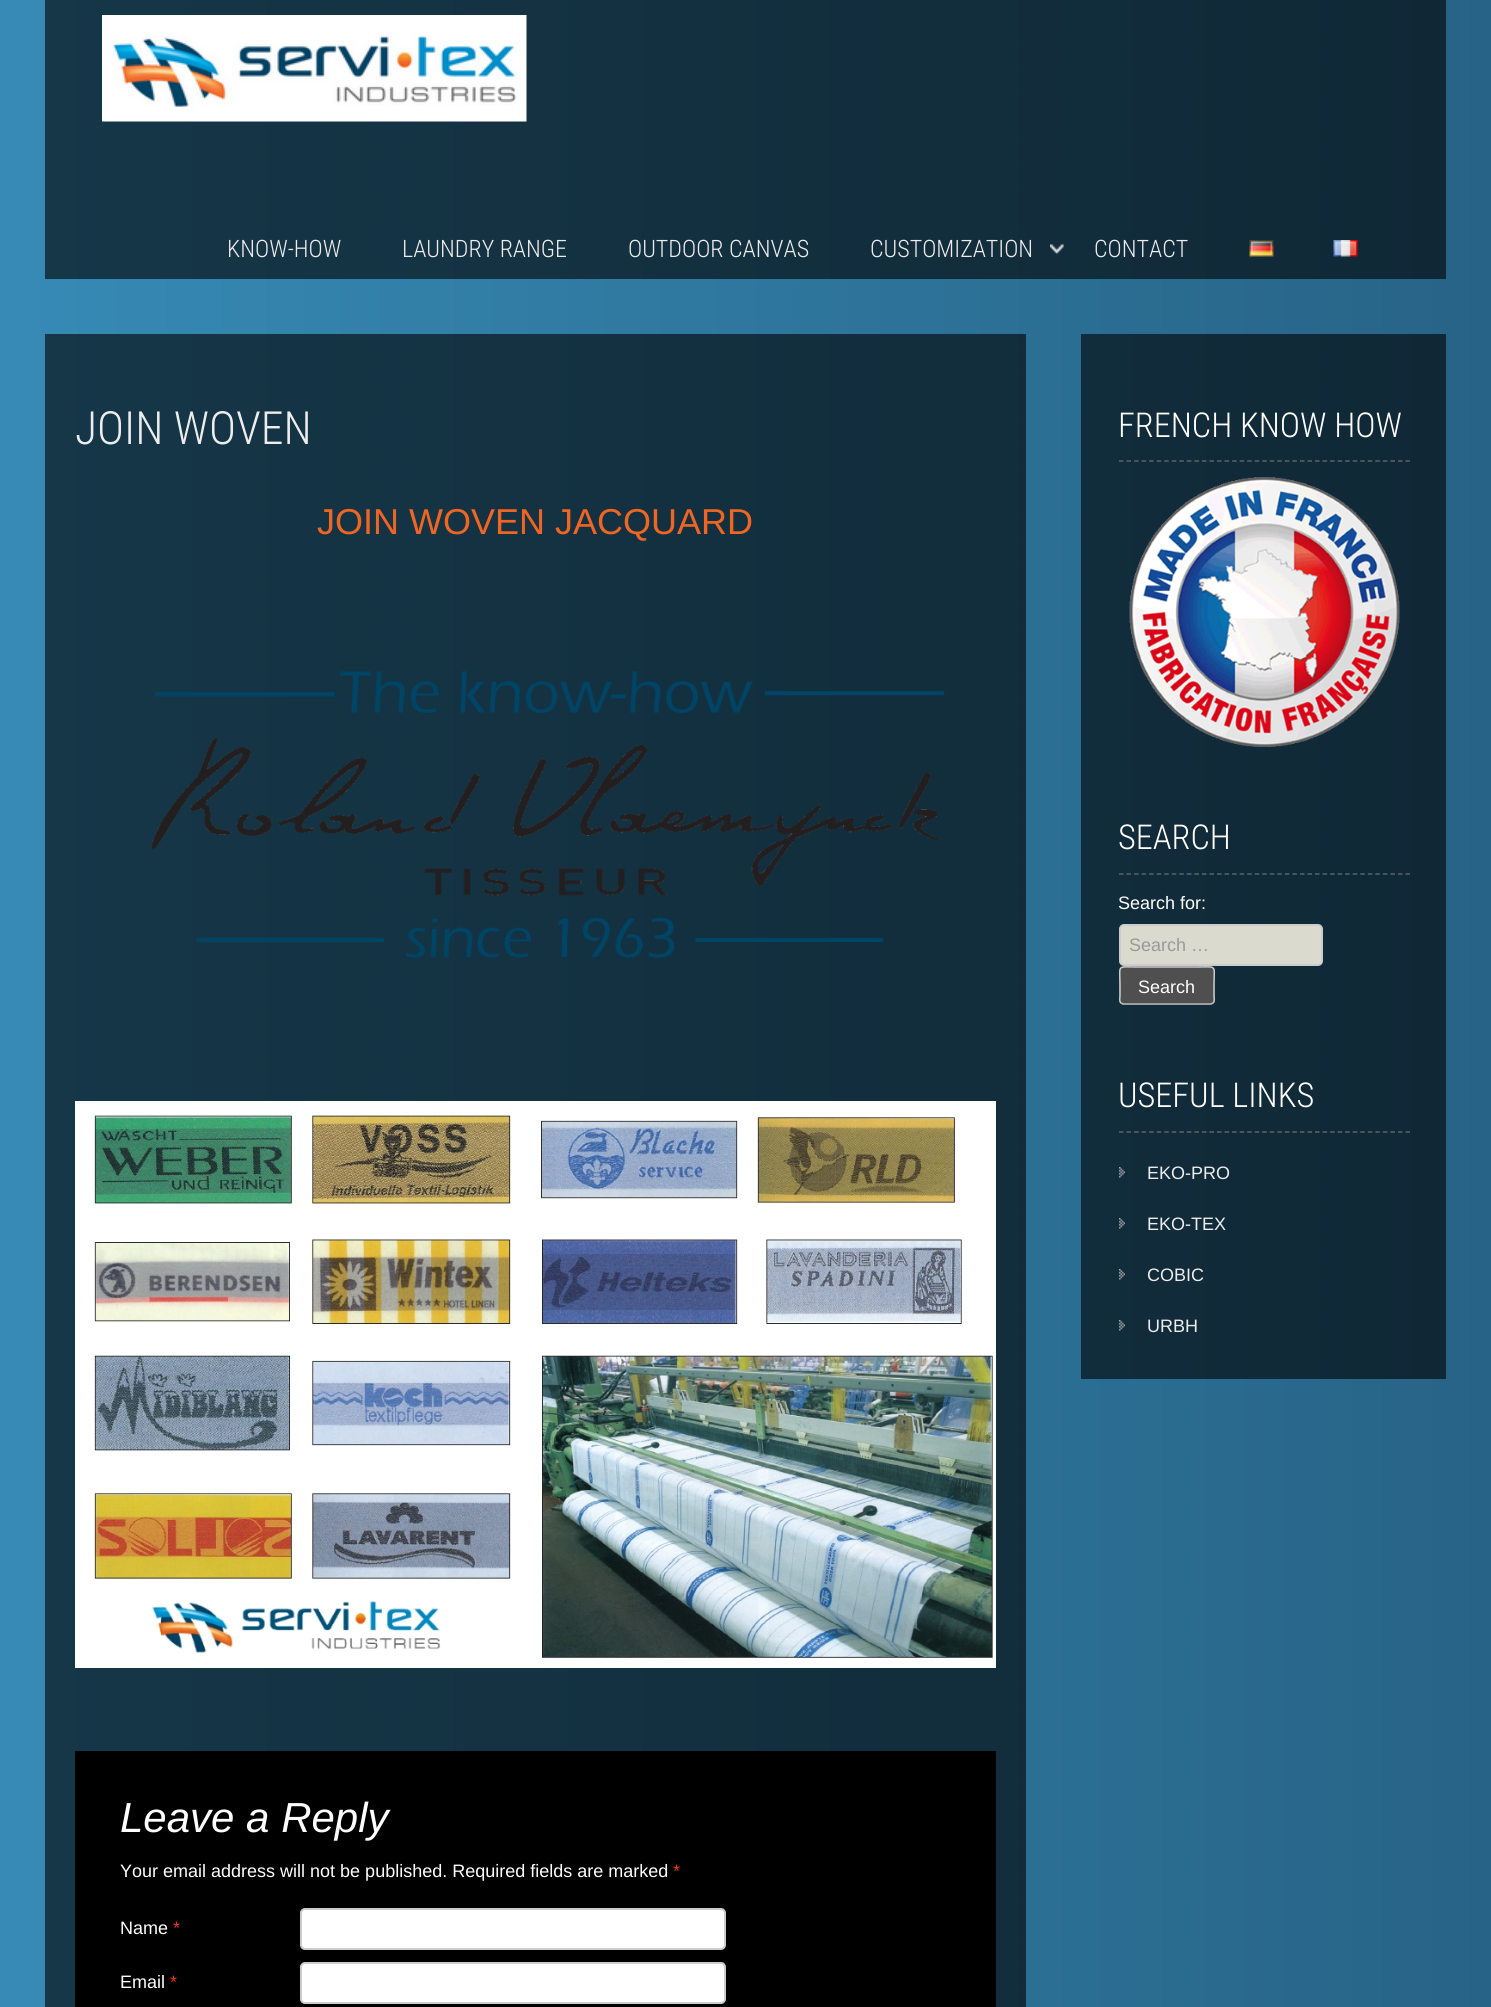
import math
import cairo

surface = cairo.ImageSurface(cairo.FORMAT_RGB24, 1491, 2007)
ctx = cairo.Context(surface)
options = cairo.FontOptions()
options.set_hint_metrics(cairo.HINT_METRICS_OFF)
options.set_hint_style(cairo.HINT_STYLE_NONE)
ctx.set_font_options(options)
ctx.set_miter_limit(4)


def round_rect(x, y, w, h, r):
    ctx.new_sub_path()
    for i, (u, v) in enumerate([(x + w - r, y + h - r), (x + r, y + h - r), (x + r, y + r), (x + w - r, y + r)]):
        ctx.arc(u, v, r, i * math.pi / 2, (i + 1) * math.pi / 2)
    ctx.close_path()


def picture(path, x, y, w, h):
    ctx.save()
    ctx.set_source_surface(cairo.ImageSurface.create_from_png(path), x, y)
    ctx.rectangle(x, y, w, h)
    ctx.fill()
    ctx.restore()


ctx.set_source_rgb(1, 1, 1)
ctx.paint()
picture("img1.png", 0, 0, 1491, 2007)
ctx.set_source_rgba(0, 0, 0, 0.6)
ctx.rectangle(45, 0, 1401, 279)
ctx.fill()
picture("img2.png", 102, 15, 425, 107)
ctx.select_font_face("Roboto Condensed Light")
ctx.set_font_size(24)
ctx.set_source_rgb(0.933, 0.929, 0.929)
ctx.move_to(227, 257)
ctx.show_text("KNOW-HOW")
ctx.move_to(402, 257)
ctx.show_text("LAUNDRY RANGE")
ctx.move_to(628, 257)
ctx.show_text("OUTDOOR CANVAS")
picture("img3.png", 1050, 244, 14, 10)
ctx.move_to(870, 257)
ctx.show_text("CUSTOMIZATION")
ctx.move_to(1094, 257)
ctx.show_text("CONTACT")
picture("img4.png", 1249, 240, 25, 17)
picture("img5.png", 1333, 240, 25, 17)
ctx.set_source_rgba(0, 0, 0, 0.6)
ctx.rectangle(45, 334, 981, 1673)
ctx.fill()
ctx.set_font_size(45.75)
ctx.set_source_rgb(0.933, 0.929, 0.929)
ctx.move_to(75, 444)
ctx.show_text("JOIN WOVEN")
ctx.select_font_face("Liberation Sans")
ctx.set_font_size(36)
ctx.set_source_rgb(0.945, 0.396, 0.137)
ctx.move_to(317, 534)
ctx.show_text("JOIN WOVEN JACQUARD")
picture("img6.png", 151, 671, 794, 287)
picture("img7.png", 75, 1101, 921, 567)
ctx.set_source_rgb(0, 0, 0)
ctx.rectangle(75, 1751, 921, 256)
ctx.fill()
ctx.select_font_face("Liberation Sans", cairo.FONT_SLANT_ITALIC)
ctx.set_font_size(42)
ctx.set_source_rgb(1, 1, 1)
ctx.move_to(120, 1832)
ctx.show_text("Leave a Reply")
ctx.select_font_face("Liberation Sans")
ctx.set_font_size(18)
ctx.move_to(120, 1877)
ctx.show_text("Your email address will not be published. Required fields are marked")
ctx.set_source_rgb(0.929, 0.2, 0.11)
ctx.move_to(673, 1877)
ctx.show_text("*")
ctx.set_source_rgb(1, 1, 1)
ctx.move_to(120, 1934)
ctx.show_text("Name")
ctx.set_source_rgb(0.929, 0.2, 0.11)
ctx.move_to(173, 1934)
ctx.show_text("*")
ctx.set_source_rgb(1, 1, 1)
round_rect(301, 1909, 424, 40, 4)
ctx.fill_preserve()
ctx.set_source_rgb(0.8, 0.8, 0.8)
ctx.stroke()
ctx.set_source_rgb(1, 1, 1)
ctx.move_to(120, 1988)
ctx.show_text("Email")
ctx.set_source_rgb(0.929, 0.2, 0.11)
ctx.move_to(170, 1988)
ctx.show_text("*")
ctx.set_source_rgb(1, 1, 1)
round_rect(301, 1963, 424, 40, 4)
ctx.fill_preserve()
ctx.set_source_rgb(0.8, 0.8, 0.8)
ctx.stroke()
ctx.set_source_rgba(0, 0, 0, 0.6)
ctx.rectangle(1081, 334, 365, 1045)
ctx.fill()
ctx.new_path()
ctx.move_to(1119, 461)
ctx.line_to(1410, 461)
ctx.set_source_rgb(0.376, 0.384, 0.4)
ctx.set_line_width(1.5)
ctx.set_dash([4.5, 3.04])
ctx.stroke()
ctx.select_font_face("Roboto Condensed Light")
ctx.set_font_size(34.25)
ctx.set_source_rgb(1, 1, 1)
ctx.move_to(1118, 437)
ctx.show_text("FRENCH KNOW HOW")
picture("img8.png", 1129, 477, 271, 270)
ctx.new_path()
ctx.move_to(1119, 874)
ctx.line_to(1410, 874)
ctx.set_source_rgb(0.376, 0.384, 0.4)
ctx.stroke()
ctx.set_source_rgb(1, 1, 1)
ctx.move_to(1118, 849)
ctx.show_text("SEARCH")
ctx.select_font_face("Liberation Sans")
ctx.set_font_size(18)
ctx.move_to(1118, 909)
ctx.show_text("Search for:")
ctx.set_source_rgb(0.859, 0.855, 0.812)
round_rect(1120, 925, 202, 40, 4)
ctx.fill_preserve()
ctx.set_source_rgb(0.8, 0.8, 0.8)
ctx.set_line_width(2)
ctx.set_dash([])
ctx.stroke()
ctx.set_source_rgb(0.6, 0.6, 0.6)
ctx.move_to(1129, 951)
ctx.show_text("Search …")
ctx.set_source_rgb(0.31, 0.31, 0.31)
round_rect(1119, 966, 96, 39, 5)
ctx.fill()
ctx.new_path()
ctx.move_to(1213, 1003)
ctx.line_to(1211, 1004)
ctx.line_to(1123, 1004)
ctx.line_to(1121, 1003)
ctx.set_source_rgb(0.733, 0.733, 0.733)
ctx.set_line_width(1.5)
ctx.stroke()
ctx.new_path()
ctx.move_to(1121, 1003)
ctx.curve_to(1119, 1001.5, 1120, 997.5, 1120, 995.5)
ctx.line_to(1120, 985.5)
ctx.curve_to(1120, 964, 1116, 967, 1138, 967)
ctx.line_to(1196, 967)
ctx.curve_to(1218, 967, 1214, 964, 1214, 985.5)
ctx.line_to(1214, 995.5)
ctx.curve_to(1214, 997.5, 1215, 1001.5, 1213, 1003)
ctx.set_source_rgb(0.8, 0.8, 0.8)
ctx.stroke()
ctx.set_source_rgb(1, 1, 1)
ctx.move_to(1138, 993)
ctx.show_text("Search")
ctx.new_path()
ctx.move_to(1119, 1132)
ctx.line_to(1410, 1132)
ctx.set_source_rgb(0.376, 0.384, 0.4)
ctx.set_dash([4.5, 3.04])
ctx.stroke()
ctx.select_font_face("Roboto Condensed Light")
ctx.set_font_size(34.25)
ctx.set_source_rgb(1, 1, 1)
ctx.move_to(1118, 1107)
ctx.show_text("USEFUL LINKS")
picture("img9.png", 1119, 1167, 6, 11)
ctx.select_font_face("Liberation Sans")
ctx.set_font_size(18)
ctx.set_source_rgb(0.933, 0.929, 0.929)
ctx.move_to(1147, 1179)
ctx.show_text("EKO-PRO")
picture("img9.png", 1119, 1218, 6, 11)
ctx.move_to(1147, 1230)
ctx.show_text("EKO-TEX")
picture("img9.png", 1119, 1269, 6, 11)
ctx.move_to(1147, 1281)
ctx.show_text("COBIC")
picture("img9.png", 1119, 1320, 6, 11)
ctx.move_to(1147, 1332)
ctx.show_text("URBH")
surface.write_to_png("page.png")
